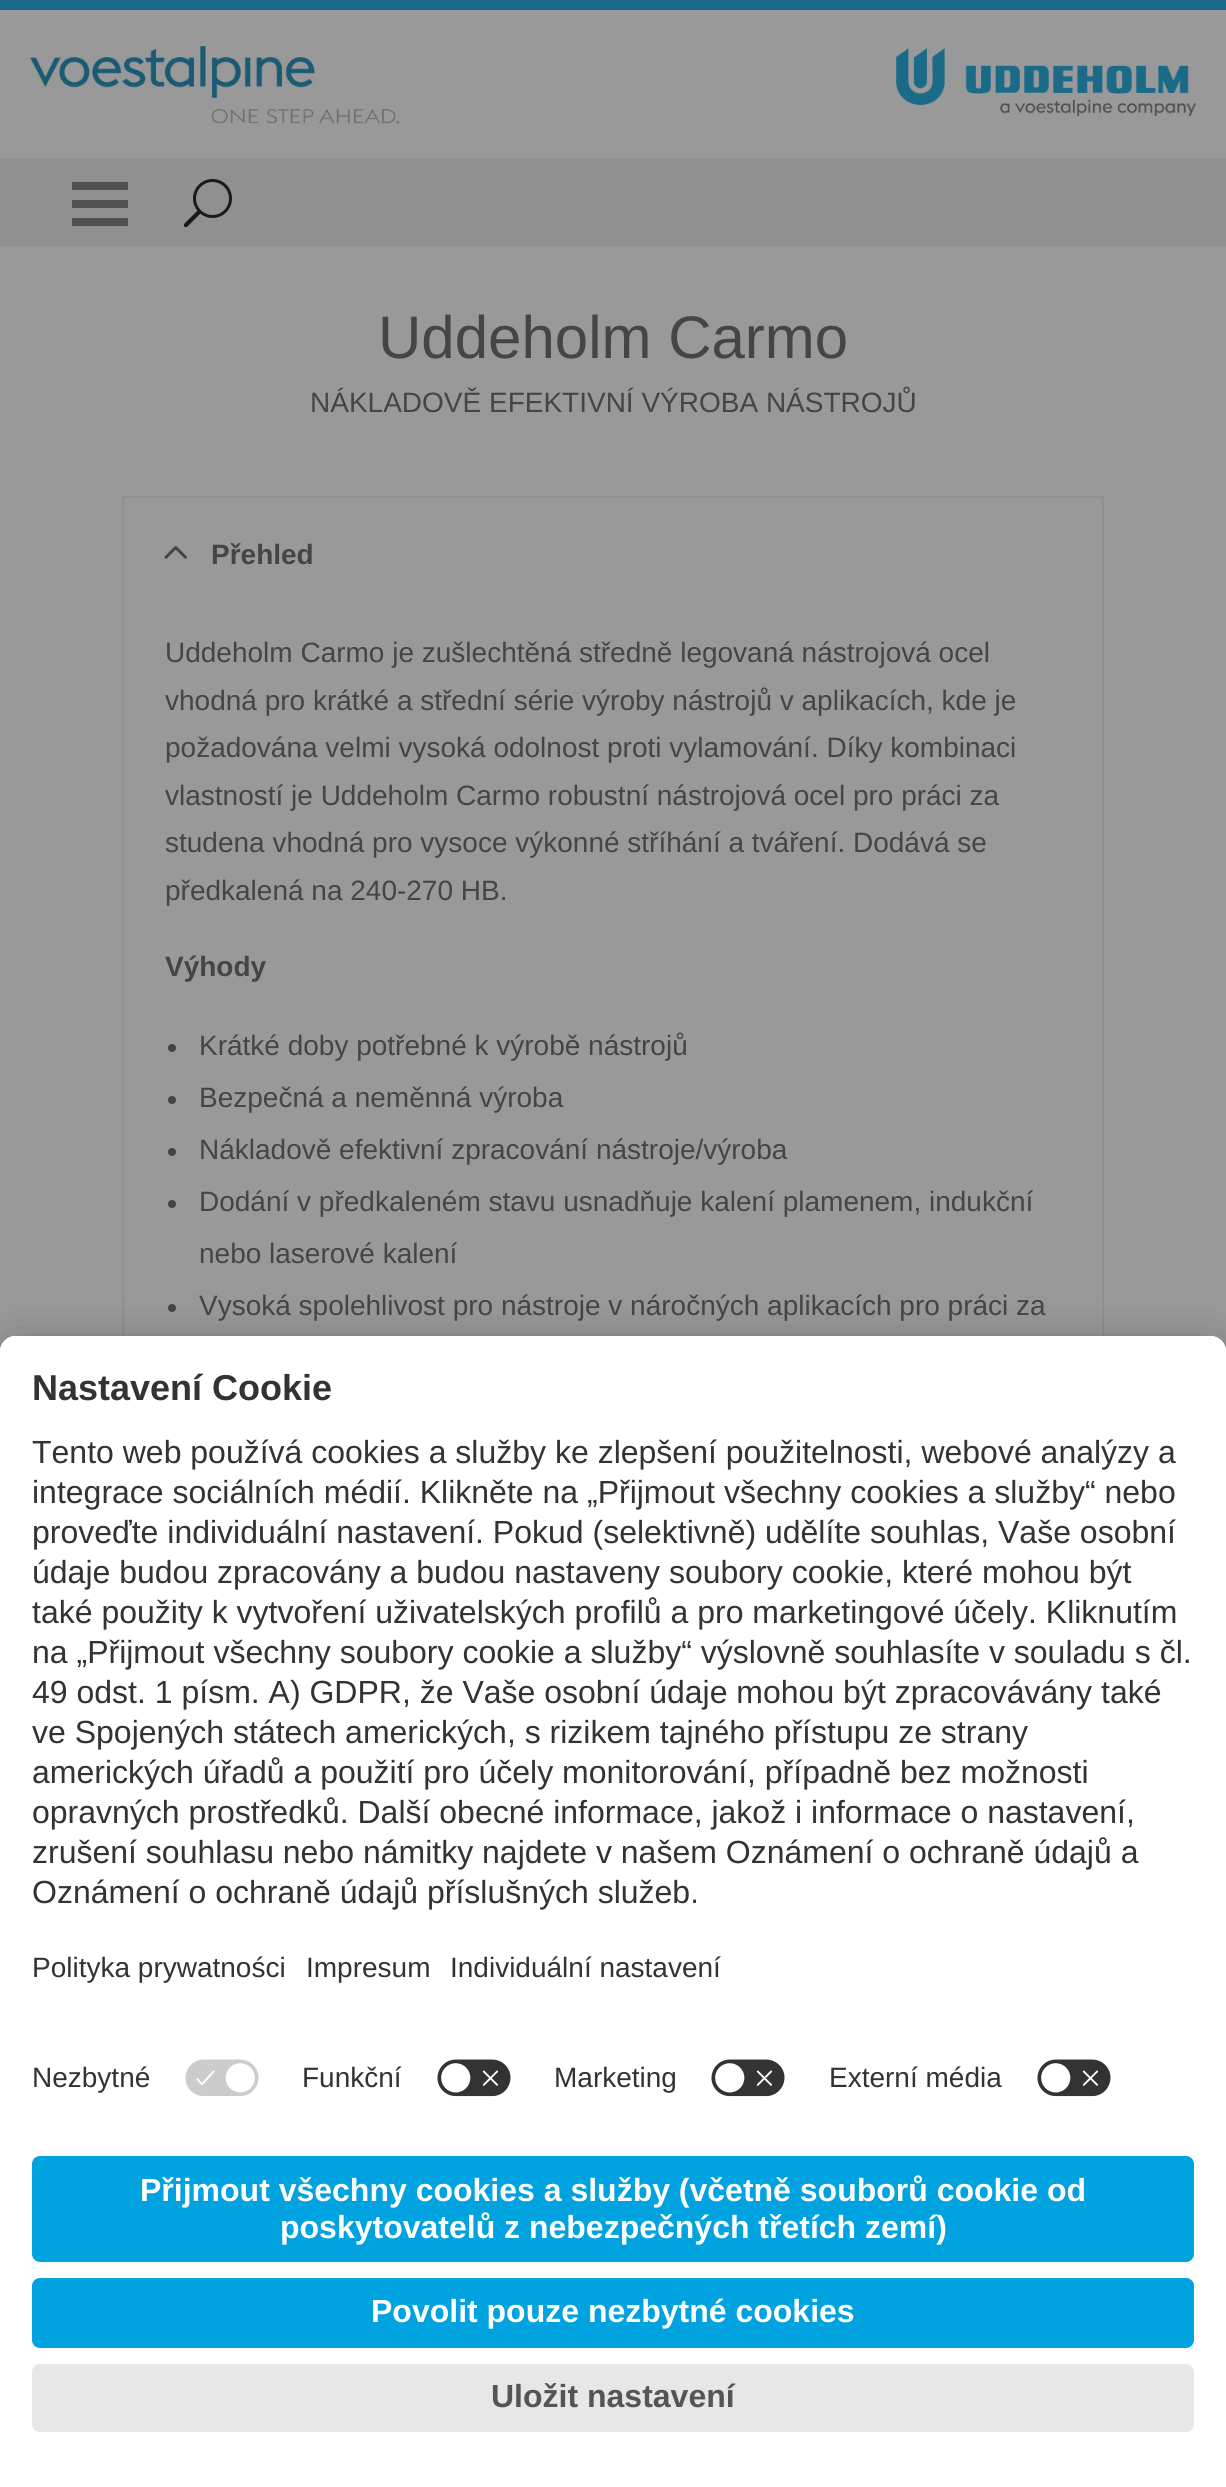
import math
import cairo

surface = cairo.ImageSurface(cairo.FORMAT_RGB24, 1226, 2487)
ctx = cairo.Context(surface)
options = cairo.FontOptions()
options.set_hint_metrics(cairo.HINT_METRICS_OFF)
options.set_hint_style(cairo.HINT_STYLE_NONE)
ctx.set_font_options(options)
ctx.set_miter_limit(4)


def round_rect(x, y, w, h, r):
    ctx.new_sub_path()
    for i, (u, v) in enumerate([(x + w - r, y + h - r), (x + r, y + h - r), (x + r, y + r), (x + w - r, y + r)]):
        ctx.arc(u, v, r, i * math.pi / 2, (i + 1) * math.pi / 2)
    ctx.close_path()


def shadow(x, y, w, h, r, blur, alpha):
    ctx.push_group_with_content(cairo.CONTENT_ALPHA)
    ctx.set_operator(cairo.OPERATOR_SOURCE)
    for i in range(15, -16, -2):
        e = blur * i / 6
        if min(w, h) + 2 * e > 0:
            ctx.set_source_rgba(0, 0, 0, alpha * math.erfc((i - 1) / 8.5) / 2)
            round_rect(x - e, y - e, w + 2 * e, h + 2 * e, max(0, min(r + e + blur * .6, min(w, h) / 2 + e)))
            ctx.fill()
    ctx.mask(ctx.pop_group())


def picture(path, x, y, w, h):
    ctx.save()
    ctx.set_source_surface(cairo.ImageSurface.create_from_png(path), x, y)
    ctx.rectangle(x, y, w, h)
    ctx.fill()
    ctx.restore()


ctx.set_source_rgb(0.6, 0.6, 0.6)
ctx.paint()
ctx.set_source_rgb(0.102, 0.42, 0.541)
ctx.rectangle(0, 0, 1226, 10)
ctx.fill()
picture("img1.png", 30, 46, 370, 78)
picture("img2.png", 896, 48, 300, 68)
ctx.set_source_rgb(0.565, 0.565, 0.565)
ctx.rectangle(0, 158, 1226, 88)
ctx.fill()
ctx.set_source_rgb(0.318, 0.318, 0.318)
ctx.rectangle(72, 182, 56, 8)
ctx.fill()
ctx.rectangle(72, 200, 56, 8)
ctx.fill()
ctx.rectangle(72, 218, 56, 8)
ctx.fill()
picture("img3.png", 183, 179, 49, 49)
ctx.select_font_face("Liberation Sans")
ctx.set_font_size(60)
ctx.set_source_rgb(0.271, 0.271, 0.271)
ctx.move_to(378, 358)
ctx.show_text("Uddeholm Carmo")
ctx.set_font_size(28)
ctx.move_to(310, 412)
ctx.show_text("NÁKLADOVĚ EFEKTIVNÍ VÝROBA NÁSTROJŮ")
ctx.set_source_rgb(0.565, 0.565, 0.565)
ctx.rectangle(122, 496, 982, 2)
ctx.fill()
ctx.rectangle(1102, 496, 2, 840)
ctx.fill()
ctx.rectangle(122, 496, 2, 840)
ctx.fill()
picture("img4.png", 164, 546, 23, 13)
ctx.select_font_face("Liberation Sans", cairo.FONT_SLANT_NORMAL, cairo.FONT_WEIGHT_BOLD)
ctx.set_source_rgb(0.271, 0.271, 0.271)
ctx.move_to(211, 564)
ctx.show_text("Přehled")
ctx.select_font_face("Liberation Sans")
ctx.move_to(165, 662)
ctx.show_text("Uddeholm Carmo je zušlechtěná středně legovaná nástrojová ocel")
ctx.move_to(165, 710)
ctx.show_text("vhodná pro krátké a střední série výroby nástrojů v aplikacích, kde je")
ctx.move_to(165, 757)
ctx.show_text("požadována velmi vysoká odolnost proti vylamování. Díky kombinaci")
ctx.move_to(165, 805)
ctx.show_text("vlastností je Uddeholm Carmo robustní nástrojová ocel pro práci za")
ctx.move_to(165, 852)
ctx.show_text("studena vhodná pro vysoce výkonné stříhání a tváření. Dodává se")
ctx.move_to(165, 900)
ctx.show_text("předkalená na 240-270 HB.")
ctx.select_font_face("Liberation Sans", cairo.FONT_SLANT_NORMAL, cairo.FONT_WEIGHT_BOLD)
ctx.move_to(165, 976)
ctx.show_text("Výhody")
ctx.new_path()
ctx.arc(172, 1048, 4, 0, 2 * math.pi)
ctx.fill()
ctx.select_font_face("Liberation Sans")
ctx.move_to(199, 1055)
ctx.show_text("Krátké doby potřebné k výrobě nástrojů")
ctx.new_path()
ctx.arc(172, 1100, 4, 0, 2 * math.pi)
ctx.fill()
ctx.move_to(199, 1107)
ctx.show_text("Bezpečná a neměnná výroba")
ctx.new_path()
ctx.arc(172, 1152, 4, 0, 2 * math.pi)
ctx.fill()
ctx.move_to(199, 1159)
ctx.show_text("Nákladově efektivní zpracování nástroje/výroba")
ctx.new_path()
ctx.arc(172, 1204, 4, 0, 2 * math.pi)
ctx.fill()
ctx.move_to(199, 1211)
ctx.show_text("Dodání v předkaleném stavu usnadňuje kalení plamenem, indukční")
ctx.move_to(199, 1263)
ctx.show_text("nebo laserové kalení")
ctx.new_path()
ctx.arc(172, 1308, 4, 0, 2 * math.pi)
ctx.fill()
ctx.move_to(199, 1315)
ctx.show_text("Vysoká spolehlivost pro nástroje v náročných aplikacích pro práci za")
ctx.set_source_rgb(0, 0, 0)
shadow(0, 1376, 1226, 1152, 16, 28, 0.3)
shadow(0, 1346, 1226, 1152, 16, 26, 0.22)
ctx.set_source_rgb(1, 1, 1)
ctx.new_path()
ctx.move_to(16, 1336)
ctx.line_to(1210, 1336)
ctx.curve_to(1219, 1336, 1226, 1343, 1226, 1352)
ctx.line_to(1226, 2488)
ctx.line_to(0, 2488)
ctx.line_to(0, 1352)
ctx.curve_to(0, 1343, 7, 1336, 16, 1336)
ctx.close_path()
ctx.fill()
ctx.new_path()
ctx.move_to(16, 1336)
ctx.line_to(1210, 1336)
ctx.curve_to(1219, 1336, 1226, 1343, 1226, 1352)
ctx.line_to(1226, 2132)
ctx.line_to(0, 2132)
ctx.line_to(0, 1352)
ctx.curve_to(0, 1343, 7, 1336, 16, 1336)
ctx.close_path()
ctx.fill()
ctx.new_path()
ctx.move_to(16, 1336)
ctx.line_to(1210, 1336)
ctx.curve_to(1219, 1336, 1226, 1343, 1226, 1352)
ctx.line_to(1226, 2044)
ctx.line_to(0, 2044)
ctx.line_to(0, 1352)
ctx.curve_to(0, 1343, 7, 1336, 16, 1336)
ctx.close_path()
ctx.fill()
ctx.select_font_face("Liberation Sans", cairo.FONT_SLANT_NORMAL, cairo.FONT_WEIGHT_BOLD)
ctx.set_font_size(36)
ctx.set_source_rgb(0.2, 0.2, 0.2)
ctx.move_to(32, 1400)
ctx.show_text("Nastavení Cookie")
ctx.select_font_face("Liberation Sans")
ctx.set_font_size(32)
ctx.move_to(32, 1463)
ctx.show_text("Tento web používá cookies a služby ke zlepšení použitelnosti, webové analýzy a")
ctx.move_to(32, 1503)
ctx.show_text("integrace sociálních médií. Klikněte na „Přijmout všechny cookies a služby“ nebo")
ctx.move_to(32, 1543)
ctx.show_text("proveďte individuální nastavení. Pokud (selektivně) udělíte souhlas, Vaše osobní")
ctx.move_to(32, 1583)
ctx.show_text("údaje budou zpracovány a budou nastaveny soubory cookie, které mohou být")
ctx.move_to(32, 1623)
ctx.show_text("také použity k vytvoření uživatelských profilů a pro marketingové účely. Kliknutím")
ctx.move_to(32, 1663)
ctx.show_text("na „Přijmout všechny soubory cookie a služby“ výslovně souhlasíte v souladu s čl.")
ctx.move_to(32, 1703)
ctx.show_text("49 odst. 1 písm. A) GDPR, že Vaše osobní údaje mohou být zpracovávány také")
ctx.move_to(32, 1743)
ctx.show_text("ve Spojených státech amerických, s rizikem tajného přístupu ze strany")
ctx.move_to(32, 1783)
ctx.show_text("amerických úřadů a použití pro účely monitorování, případně bez možnosti")
ctx.move_to(32, 1823)
ctx.show_text("opravných prostředků. Další obecné informace, jakož i informace o nastavení,")
ctx.move_to(32, 1863)
ctx.show_text("zrušení souhlasu nebo námitky najdete v našem Oznámení o ochraně údajů a")
ctx.move_to(32, 1903)
ctx.show_text("Oznámení o ochraně údajů příslušných služeb.")
ctx.set_font_size(28)
ctx.move_to(32, 1977)
ctx.show_text("Polityka prywatności")
ctx.move_to(306, 1977)
ctx.show_text("Impresum")
ctx.move_to(450, 1977)
ctx.show_text("Individuální nastavení")
ctx.move_to(32, 2087)
ctx.show_text("Nezbytné")
picture("img5.png", 185, 2059, 74, 37)
ctx.move_to(302, 2087)
ctx.show_text("Funkční")
picture("img6.png", 437, 2059, 74, 38)
ctx.move_to(554, 2087)
ctx.show_text("Marketing")
picture("img6.png", 711, 2059, 74, 38)
ctx.move_to(829, 2087)
ctx.show_text("Externí média")
picture("img6.png", 1037, 2059, 74, 38)
ctx.set_source_rgb(0, 0.639, 0.878)
round_rect(32, 2156, 1162, 106, 8)
ctx.fill()
ctx.select_font_face("Liberation Sans", cairo.FONT_SLANT_NORMAL, cairo.FONT_WEIGHT_BOLD)
ctx.set_font_size(32)
ctx.set_source_rgb(1, 1, 1)
ctx.move_to(140, 2201)
ctx.show_text("Přijmout všechny cookies a služby (včetně souborů cookie od")
ctx.move_to(280, 2238)
ctx.show_text("poskytovatelů z nebezpečných třetích zemí)")
ctx.set_source_rgb(0, 0.639, 0.878)
round_rect(32, 2278, 1162, 70, 8)
ctx.fill()
ctx.set_source_rgb(1, 1, 1)
ctx.move_to(371, 2322)
ctx.show_text("Povolit pouze nezbytné cookies")
ctx.set_source_rgb(0.906, 0.906, 0.906)
round_rect(32, 2364, 1162, 68, 8)
ctx.fill()
ctx.set_source_rgb(0.333, 0.333, 0.333)
ctx.move_to(491, 2407)
ctx.show_text("Uložit nastavení")
surface.write_to_png("page.png")
